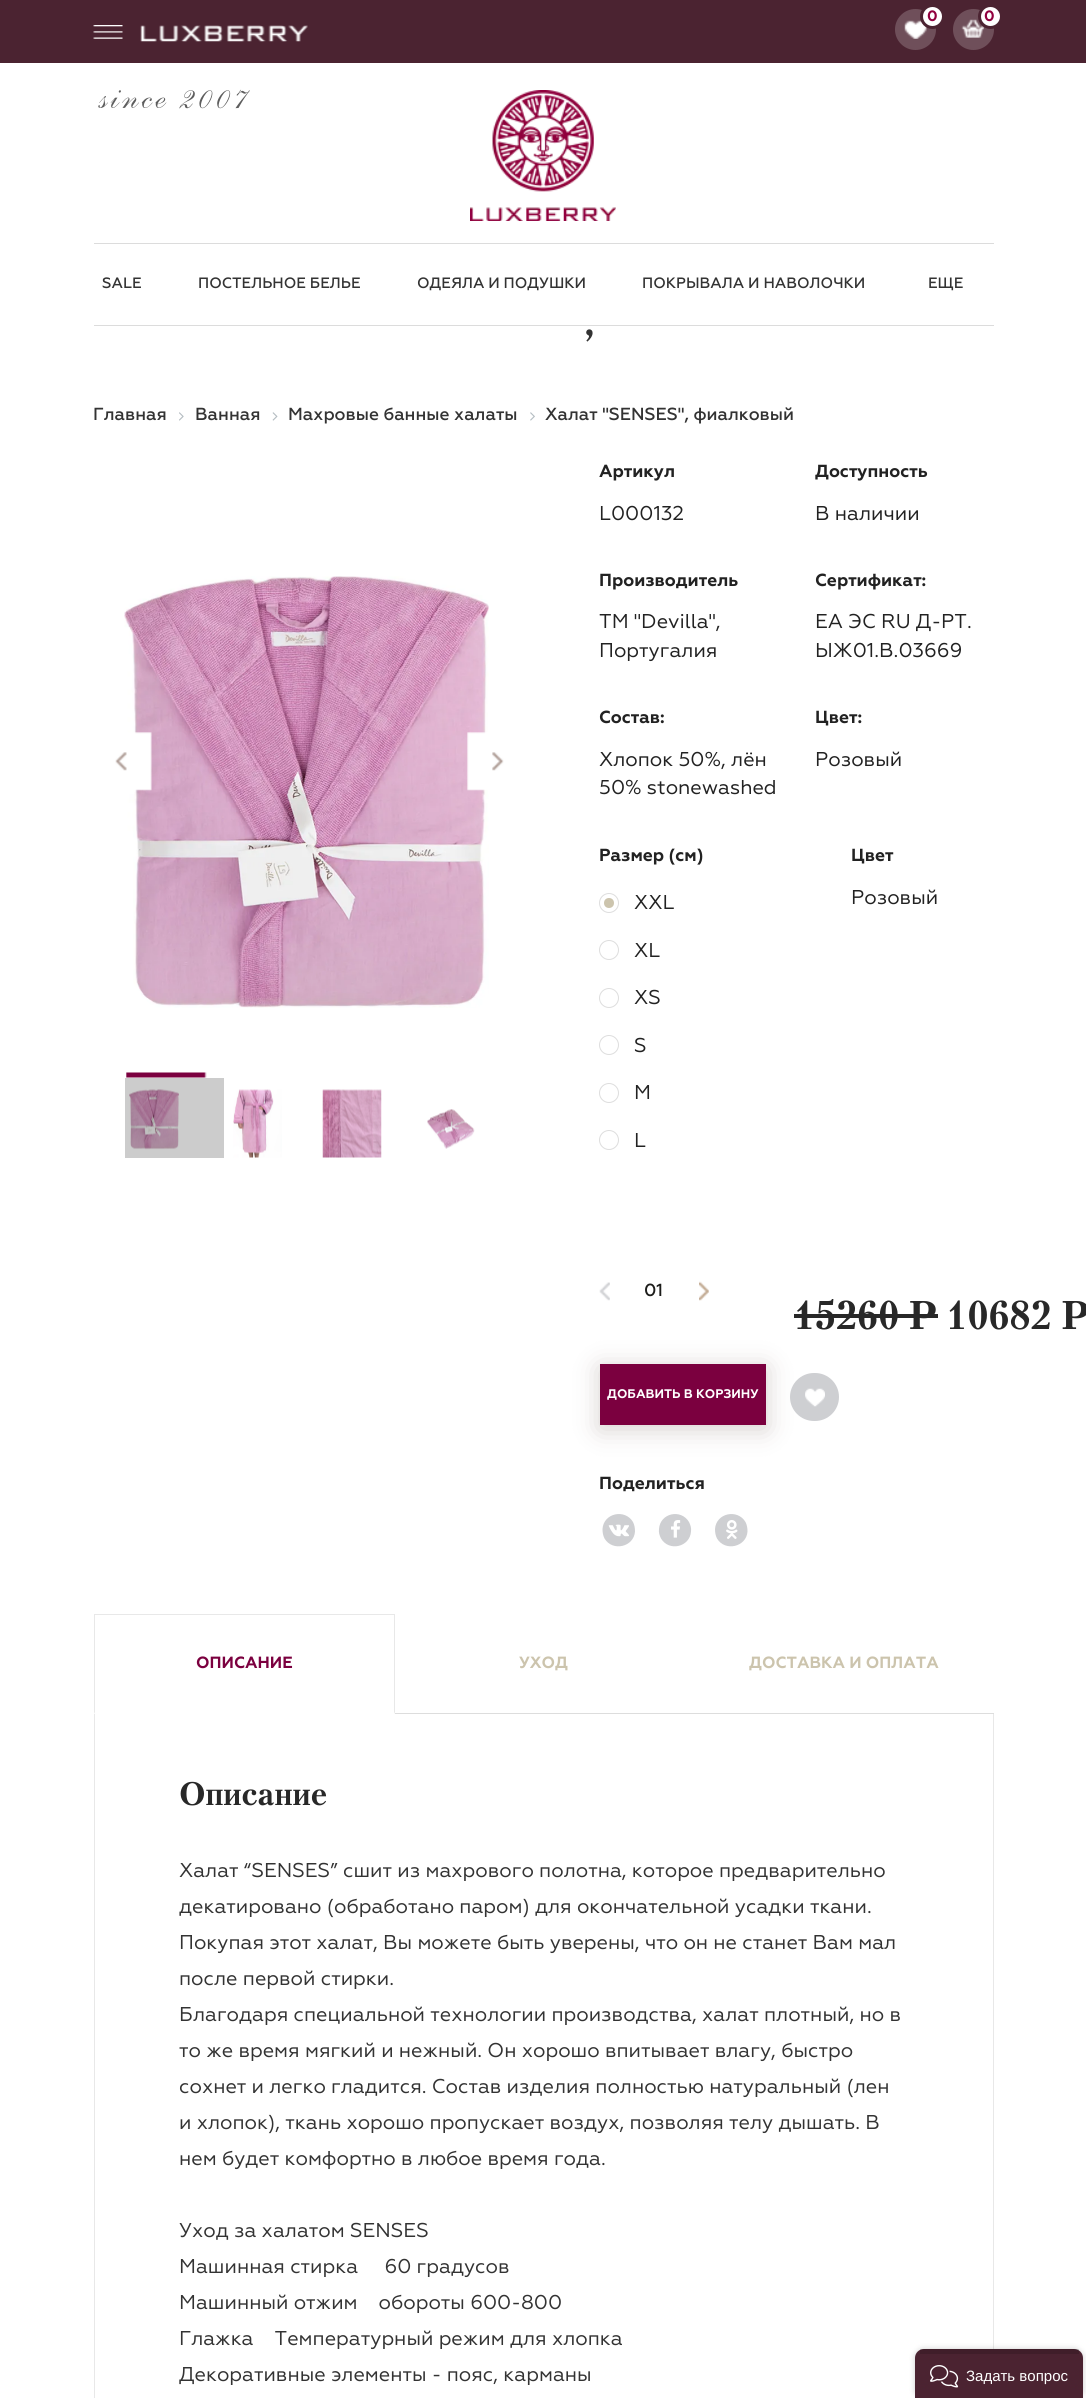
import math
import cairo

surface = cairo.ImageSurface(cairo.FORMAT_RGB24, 1086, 2398)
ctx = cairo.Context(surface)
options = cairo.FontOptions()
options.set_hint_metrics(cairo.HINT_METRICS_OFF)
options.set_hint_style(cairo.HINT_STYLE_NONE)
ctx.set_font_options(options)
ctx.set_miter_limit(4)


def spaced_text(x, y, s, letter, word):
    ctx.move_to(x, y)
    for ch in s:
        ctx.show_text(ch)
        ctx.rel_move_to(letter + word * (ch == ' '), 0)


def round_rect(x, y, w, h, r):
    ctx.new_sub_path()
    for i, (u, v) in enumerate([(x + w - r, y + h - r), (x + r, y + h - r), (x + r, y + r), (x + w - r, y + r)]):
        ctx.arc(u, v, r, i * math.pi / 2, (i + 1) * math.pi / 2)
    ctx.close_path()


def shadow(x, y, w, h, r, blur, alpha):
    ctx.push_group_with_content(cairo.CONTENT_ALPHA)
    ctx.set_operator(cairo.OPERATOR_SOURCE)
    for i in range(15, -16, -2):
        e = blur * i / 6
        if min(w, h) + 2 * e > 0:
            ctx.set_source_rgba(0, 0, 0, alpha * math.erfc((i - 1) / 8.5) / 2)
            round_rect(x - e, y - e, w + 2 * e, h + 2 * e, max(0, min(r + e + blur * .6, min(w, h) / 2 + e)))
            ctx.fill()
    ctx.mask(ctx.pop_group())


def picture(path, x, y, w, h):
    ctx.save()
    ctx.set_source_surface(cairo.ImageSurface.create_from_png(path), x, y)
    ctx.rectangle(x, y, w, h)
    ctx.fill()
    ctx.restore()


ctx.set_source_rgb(1, 1, 1)
ctx.paint()
ctx.set_source_rgb(0.8, 0.8, 0.8)
ctx.rectangle(125, 1078, 99, 80)
ctx.fill()
ctx.set_source_rgb(0.294, 0.137, 0.192)
ctx.rectangle(0, 0, 1086, 63)
ctx.fill()
ctx.set_source_rgb(0.435, 0.31, 0.353)
ctx.arc(915.5, 29.5, 20.5, 0, 2 * math.pi)
ctx.fill()
picture("img1.png", 904, 20, 23, 19)
ctx.set_source_rgb(1, 1, 1)
ctx.arc(932.5, 16.5, 11, 0, 2 * math.pi)
ctx.fill_preserve()
ctx.set_source_rgb(0.294, 0.137, 0.192)
ctx.set_line_width(3)
ctx.stroke()
ctx.select_font_face("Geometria", cairo.FONT_SLANT_NORMAL, cairo.FONT_WEIGHT_BOLD)
ctx.set_font_size(15)
ctx.set_source_rgb(0.569, 0, 0.243)
ctx.move_to(927, 21)
ctx.show_text("0")
ctx.set_source_rgb(0.435, 0.31, 0.353)
ctx.new_path()
ctx.arc(973.5, 29.5, 20.5, 0, 2 * math.pi)
ctx.fill()
picture("img2.png", 961, 19, 23, 19)
ctx.set_source_rgb(1, 1, 1)
ctx.arc(990.5, 16.5, 11, 0, 2 * math.pi)
ctx.fill_preserve()
ctx.set_source_rgb(0.294, 0.137, 0.192)
ctx.stroke()
ctx.set_source_rgb(0.569, 0, 0.243)
ctx.move_to(984, 21)
ctx.show_text("0")
picture("img3.png", 93, 25, 30, 14)
picture("img4.png", 140, 25, 168, 17)
ctx.select_font_face("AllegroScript", cairo.FONT_SLANT_ITALIC)
ctx.set_font_size(37.5)
ctx.set_source_rgb(0.365, 0.365, 0.365)
spaced_text(93, 108, "since 2007", 3.1, 0)
picture("img5.png", 470, 90, 146, 131)
ctx.set_source_rgb(0.863, 0.863, 0.863)
ctx.rectangle(94, 243, 900, 1)
ctx.fill()
ctx.rectangle(94, 325, 900, 1)
ctx.fill()
ctx.select_font_face("Geometria Medium")
ctx.set_font_size(15)
ctx.set_source_rgb(0.2, 0.2, 0.2)
ctx.move_to(102, 288)
ctx.show_text("SALE")
ctx.move_to(198, 288)
ctx.show_text("ПОСТЕЛЬНОЕ БЕЛЬЕ")
ctx.move_to(417, 288)
ctx.show_text("ОДЕЯЛА И ПОДУШКИ")
ctx.move_to(642, 288)
ctx.show_text("ПОКРЫВАЛА И НАВОЛОЧКИ")
ctx.move_to(928, 288)
ctx.show_text("ЕЩЕ")
ctx.select_font_face("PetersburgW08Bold", cairo.FONT_SLANT_NORMAL, cairo.FONT_WEIGHT_BOLD)
ctx.set_font_size(40)
ctx.move_to(583, 335)
ctx.show_text(",")
ctx.select_font_face("Geometria Medium")
ctx.set_font_size(17.5)
ctx.move_to(93, 420)
ctx.show_text("Главная")
picture("img6.png", 179, 412, 5, 9)
ctx.move_to(195, 420)
ctx.show_text("Ванная")
picture("img7.png", 272, 412, 6, 9)
ctx.move_to(288, 420)
ctx.show_text("Махровые банные халаты")
picture("img8.png", 530, 412, 5, 9)
ctx.move_to(545, 420)
ctx.show_text("Халат \"SENSES\", фиалковый")
picture("img9.png", 124, 576, 365, 432)
picture("img10.png", 115, 732, 37, 59)
picture("img11.png", 467, 732, 37, 59)
picture("img12.png", 126, 1072, 81, 6)
picture("img13.png", 129, 1089, 50, 61)
picture("img14.png", 233, 1089, 49, 69)
picture("img15.png", 322, 1089, 60, 69)
picture("img16.png", 427, 1109, 48, 40)
ctx.select_font_face("Geometria", cairo.FONT_SLANT_NORMAL, cairo.FONT_WEIGHT_BOLD)
ctx.set_source_rgb(0.133, 0.133, 0.133)
ctx.move_to(599, 477)
ctx.show_text("Артикул")
ctx.select_font_face("Geometria")
ctx.set_font_size(20)
ctx.move_to(599, 520)
ctx.show_text("L000132")
ctx.select_font_face("Geometria", cairo.FONT_SLANT_NORMAL, cairo.FONT_WEIGHT_BOLD)
ctx.set_font_size(17.5)
ctx.move_to(815, 477)
ctx.show_text("Доступность")
ctx.select_font_face("Geometria")
ctx.set_font_size(20)
ctx.move_to(815, 520)
ctx.show_text("В наличии")
ctx.select_font_face("Geometria", cairo.FONT_SLANT_NORMAL, cairo.FONT_WEIGHT_BOLD)
ctx.set_font_size(17.5)
ctx.move_to(599, 586)
ctx.show_text("Производитель")
ctx.select_font_face("Geometria")
ctx.set_font_size(20)
ctx.move_to(599, 628)
ctx.show_text("TM \"Devilla\",")
ctx.move_to(599, 657)
ctx.show_text("Португалия")
ctx.select_font_face("Geometria", cairo.FONT_SLANT_NORMAL, cairo.FONT_WEIGHT_BOLD)
ctx.set_font_size(17.5)
ctx.move_to(815, 586)
ctx.show_text("Сертификат:")
ctx.select_font_face("Geometria")
ctx.set_font_size(20)
ctx.move_to(815, 628)
ctx.show_text("ЕА ЭС RU Д-РТ.")
ctx.move_to(815, 657)
ctx.show_text("ЫЖ01.В.03669")
ctx.select_font_face("Geometria", cairo.FONT_SLANT_NORMAL, cairo.FONT_WEIGHT_BOLD)
ctx.set_font_size(17.5)
ctx.move_to(599, 723)
ctx.show_text("Состав:")
ctx.select_font_face("Geometria")
ctx.set_font_size(20)
ctx.move_to(599, 766)
ctx.show_text("Хлопок 50%, лён")
ctx.move_to(599, 794)
ctx.show_text("50% stonewashed")
ctx.select_font_face("Geometria", cairo.FONT_SLANT_NORMAL, cairo.FONT_WEIGHT_BOLD)
ctx.set_font_size(17.5)
ctx.move_to(815, 723)
ctx.show_text("Цвет:")
ctx.select_font_face("Geometria")
ctx.set_font_size(20)
ctx.move_to(815, 766)
ctx.show_text("Розовый")
ctx.select_font_face("Geometria", cairo.FONT_SLANT_NORMAL, cairo.FONT_WEIGHT_BOLD)
ctx.set_font_size(17.5)
ctx.move_to(599, 861)
ctx.show_text("Размер (см)")
ctx.new_path()
ctx.arc(609, 903, 9.5, 0, 2 * math.pi)
ctx.set_source_rgb(0.867, 0.867, 0.867)
ctx.set_line_width(1)
ctx.stroke()
ctx.select_font_face("Geometria")
ctx.set_font_size(20)
ctx.set_source_rgb(0.133, 0.133, 0.133)
ctx.move_to(634, 909)
ctx.show_text("XXL")
ctx.set_source_rgb(0.8, 0.769, 0.678)
ctx.new_path()
ctx.arc(609, 903, 5, 0, 2 * math.pi)
ctx.fill()
ctx.arc(609, 950, 9.5, 0, 2 * math.pi)
ctx.set_source_rgb(0.867, 0.867, 0.867)
ctx.stroke()
ctx.set_source_rgb(0.133, 0.133, 0.133)
ctx.move_to(634, 957)
ctx.show_text("XL")
ctx.new_path()
ctx.arc(609, 998, 9.5, 0, 2 * math.pi)
ctx.set_source_rgb(0.867, 0.867, 0.867)
ctx.stroke()
ctx.set_source_rgb(0.133, 0.133, 0.133)
ctx.move_to(634, 1004)
ctx.show_text("XS")
ctx.new_path()
ctx.arc(609, 1045, 9.5, 0, 2 * math.pi)
ctx.set_source_rgb(0.867, 0.867, 0.867)
ctx.stroke()
ctx.set_source_rgb(0.133, 0.133, 0.133)
ctx.move_to(634, 1052)
ctx.show_text("S")
ctx.new_path()
ctx.arc(609, 1093, 9.5, 0, 2 * math.pi)
ctx.set_source_rgb(0.867, 0.867, 0.867)
ctx.stroke()
ctx.set_source_rgb(0.133, 0.133, 0.133)
ctx.move_to(634, 1099)
ctx.show_text("M")
ctx.new_path()
ctx.arc(609, 1140, 9.5, 0, 2 * math.pi)
ctx.set_source_rgb(0.867, 0.867, 0.867)
ctx.stroke()
ctx.set_source_rgb(0.133, 0.133, 0.133)
ctx.move_to(634, 1147)
ctx.show_text("L")
ctx.select_font_face("Geometria", cairo.FONT_SLANT_NORMAL, cairo.FONT_WEIGHT_BOLD)
ctx.set_font_size(17.5)
ctx.move_to(851, 861)
ctx.show_text("Цвет")
ctx.select_font_face("Geometria")
ctx.set_font_size(20)
ctx.move_to(851, 904)
ctx.show_text("Розовый")
picture("img17.png", 599, 1282, 11, 19)
ctx.select_font_face("Geometria Medium")
ctx.set_font_size(17.5)
ctx.set_source_rgb(0.114, 0.114, 0.106)
ctx.move_to(644, 1296)
ctx.show_text("01")
picture("img18.png", 699, 1281, 10, 20)
ctx.select_font_face("PetersburgW08Bold", cairo.FONT_SLANT_NORMAL, cairo.FONT_WEIGHT_BOLD)
ctx.set_font_size(40)
ctx.set_source_rgb(0.157, 0.157, 0.157)
ctx.move_to(794, 1329)
ctx.show_text("15260 P 10682 P")
ctx.rectangle(794, 1314, 144, 4)
ctx.fill()
ctx.set_source_rgb(0.616, 0.557, 0.533)
shadow(600, 1368, 166, 61, 0, 13, 0.41)
ctx.set_source_rgb(0.482, 0, 0.247)
ctx.rectangle(600, 1364, 166, 61)
ctx.fill()
ctx.select_font_face("Geometria", cairo.FONT_SLANT_NORMAL, cairo.FONT_WEIGHT_BOLD)
ctx.set_font_size(12.5)
ctx.set_source_rgb(1, 1, 1)
ctx.move_to(607, 1398)
ctx.show_text("ДОБАВИТЬ В КОРЗИНУ")
ctx.set_source_rgb(0.808, 0.812, 0.824)
round_rect(790, 1373, 49, 48, 24)
ctx.fill()
picture("img19.png", 805, 1388, 20, 19)
ctx.set_font_size(17.5)
ctx.set_source_rgb(0.133, 0.133, 0.133)
ctx.move_to(599, 1489)
ctx.show_text("Поделиться")
ctx.set_source_rgb(0.808, 0.812, 0.824)
ctx.new_path()
ctx.move_to(633, 1522)
ctx.curve_to(634.5, 1525, 635, 1528, 635, 1531.5)
ctx.curve_to(634, 1547, 612.5, 1552, 604.5, 1538.5)
ctx.curve_to(603, 1535.5, 602.5, 1532.5, 602.5, 1529)
ctx.curve_to(603.5, 1513, 625, 1508.5, 633, 1522)
ctx.close_path()
ctx.fill()
picture("img20.png", 608, 1524, 21, 13)
ctx.new_path()
ctx.move_to(689, 1522)
ctx.curve_to(690.5, 1525, 691.5, 1528, 691, 1531.5)
ctx.curve_to(690, 1547, 669, 1552, 661, 1538.5)
ctx.curve_to(659.5, 1535.5, 658.5, 1532.5, 659, 1529)
ctx.curve_to(660, 1513, 681, 1508.5, 689, 1522)
ctx.close_path()
ctx.fill()
picture("img21.png", 671, 1520, 10, 18)
ctx.new_path()
ctx.move_to(745.5, 1522)
ctx.curve_to(747, 1525, 747.5, 1528, 747.5, 1531.5)
ctx.curve_to(746.5, 1547, 725, 1552, 717, 1538.5)
ctx.curve_to(715.5, 1535.5, 715, 1532.5, 715, 1529)
ctx.curve_to(716, 1513, 737.5, 1508.5, 745.5, 1522)
ctx.close_path()
ctx.fill()
picture("img22.png", 726, 1520, 12, 19)
ctx.set_source_rgb(0.867, 0.867, 0.867)
ctx.rectangle(395, 1713, 599, 1)
ctx.fill()
ctx.set_source_rgb(0.91, 0.91, 0.91)
ctx.rectangle(94, 1614, 301, 1)
ctx.fill()
ctx.new_path()
ctx.move_to(395, 1614)
ctx.line_to(395, 1714)
ctx.line_to(394, 1712)
ctx.line_to(394, 1615)
ctx.close_path()
ctx.fill()
ctx.new_path()
ctx.move_to(94, 1714)
ctx.line_to(94, 1614)
ctx.line_to(95, 1615)
ctx.line_to(95, 1712)
ctx.close_path()
ctx.fill()
ctx.set_font_size(16.25)
ctx.set_source_rgb(0.482, 0, 0.247)
ctx.move_to(196, 1668)
ctx.show_text("ОПИСАНИЕ")
ctx.set_source_rgb(0.8, 0.769, 0.678)
ctx.move_to(519, 1668)
ctx.show_text("УХОД")
ctx.move_to(749, 1668)
ctx.show_text("ДОСТАВКА И ОПЛАТА")
ctx.set_source_rgb(0.91, 0.91, 0.91)
ctx.rectangle(993, 1714, 1, 635)
ctx.fill()
ctx.rectangle(94, 1714, 1, 684)
ctx.fill()
ctx.select_font_face("PetersburgW08Bold", cairo.FONT_SLANT_NORMAL, cairo.FONT_WEIGHT_BOLD)
ctx.set_font_size(32.5)
ctx.set_source_rgb(0.157, 0.157, 0.157)
ctx.move_to(179, 1805)
ctx.show_text("Описание")
ctx.select_font_face("Geometria")
ctx.set_font_size(20)
ctx.set_source_rgb(0.2, 0.2, 0.2)
ctx.move_to(179, 1877)
ctx.show_text("Халат “SENSES” сшит из махрового полотна, которое предварительно")
ctx.move_to(179, 1913)
ctx.show_text("декатировано (обработано паром) для окончательной усадки ткани.")
ctx.move_to(179, 1949)
ctx.show_text("Покупая этот халат, Вы можете быть уверены, что он не станет Вам мал")
ctx.move_to(179, 1985)
ctx.show_text("после первой стирки.")
ctx.move_to(179, 2021)
ctx.show_text("Благодаря специальной технологии производства, халат плотный, но в")
ctx.move_to(179, 2057)
ctx.show_text("то же время мягкий и нежный. Он хорошо впитывает влагу, быстро")
ctx.move_to(179, 2093)
ctx.show_text("сохнет и легко гладится. Состав изделия полностью натуральный (лен")
ctx.move_to(179, 2129)
ctx.show_text("и хлопок), ткань хорошо пропускает воздух, позволяя телу дышать. В")
ctx.move_to(179, 2165)
ctx.show_text("нем будет комфортно в любое время года.")
ctx.move_to(179, 2237)
ctx.show_text("Уход за халатом SENSES")
ctx.move_to(179, 2273)
ctx.show_text("Машинная стирка     60 градусов")
ctx.move_to(179, 2309)
ctx.show_text("Машинный отжим    обороты 600-800")
ctx.move_to(179, 2345)
ctx.show_text("Глажка    Температурный режим для хлопка")
ctx.move_to(179, 2381)
ctx.show_text("Декоративные элементы - пояс, карманы")
ctx.set_source_rgb(0, 0, 0)
shadow(915, 2349, 168, 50, 9, 3, 0.2)
ctx.set_source_rgb(0.294, 0.137, 0.192)
ctx.new_path()
ctx.move_to(924, 2349)
ctx.line_to(1074, 2349)
ctx.curve_to(1079, 2349, 1083, 2353, 1083, 2358)
ctx.line_to(1083, 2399)
ctx.line_to(915, 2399)
ctx.line_to(915, 2358)
ctx.curve_to(915, 2353, 919, 2349, 924, 2349)
ctx.close_path()
ctx.fill()
ctx.set_source_rgba(0, 0, 0, 0.15)
ctx.rectangle(920, 2349, 159, 5)
ctx.fill()
picture("img23.png", 930, 2365, 29, 23)
ctx.select_font_face("Liberation Sans")
ctx.set_font_size(15)
ctx.set_source_rgb(1, 1, 1)
ctx.move_to(966, 2381)
ctx.show_text("Задать вопрос")
surface.write_to_png("page.png")
